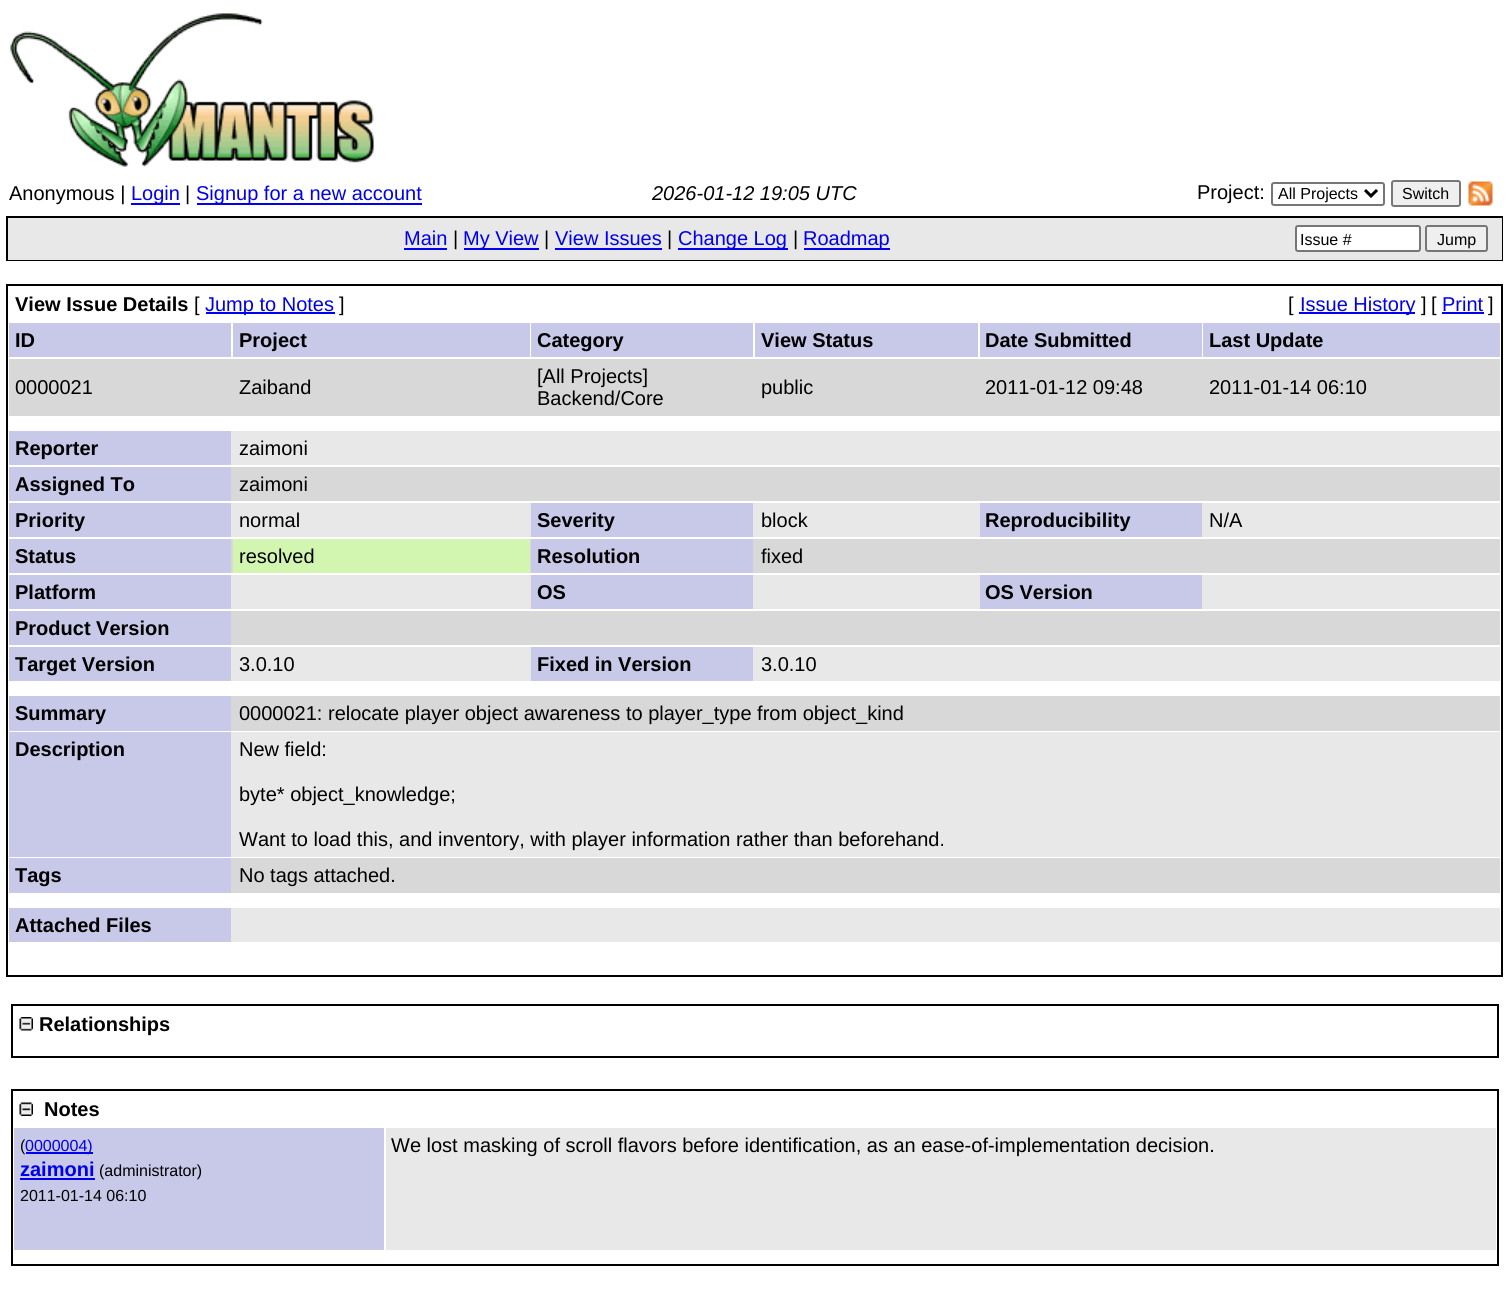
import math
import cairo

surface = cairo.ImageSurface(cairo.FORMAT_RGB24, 1509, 1293)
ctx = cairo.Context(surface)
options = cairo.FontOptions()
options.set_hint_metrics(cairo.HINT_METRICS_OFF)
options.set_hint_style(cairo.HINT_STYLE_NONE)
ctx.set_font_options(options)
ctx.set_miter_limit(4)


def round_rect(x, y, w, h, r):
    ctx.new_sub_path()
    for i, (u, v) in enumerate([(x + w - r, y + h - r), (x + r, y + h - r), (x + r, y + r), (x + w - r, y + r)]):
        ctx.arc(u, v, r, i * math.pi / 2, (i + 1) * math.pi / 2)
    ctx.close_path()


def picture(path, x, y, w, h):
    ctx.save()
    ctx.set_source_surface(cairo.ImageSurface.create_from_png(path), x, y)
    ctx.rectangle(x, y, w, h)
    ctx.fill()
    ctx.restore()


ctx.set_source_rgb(1, 1, 1)
ctx.paint()
picture("img1.png", 10, 13, 364, 154)
ctx.select_font_face("Liberation Sans")
ctx.set_font_size(20)
ctx.set_source_rgb(0, 0, 0)
ctx.move_to(9, 200)
ctx.show_text("Anonymous |")
ctx.set_source_rgb(0, 0, 0.933)
ctx.rectangle(131, 203, 49, 2)
ctx.fill()
ctx.move_to(131, 200)
ctx.show_text("Login")
ctx.set_source_rgb(0, 0, 0)
ctx.move_to(185, 200)
ctx.show_text("|")
ctx.set_source_rgb(0, 0, 0.933)
ctx.rectangle(197, 203, 225, 2)
ctx.fill()
ctx.move_to(196, 200)
ctx.show_text("Signup for a new account")
ctx.select_font_face("Liberation Sans", cairo.FONT_SLANT_ITALIC)
ctx.set_source_rgb(0, 0, 0)
ctx.move_to(652, 200)
ctx.show_text("2026-01-12 19:05 UTC")
ctx.select_font_face("Liberation Sans")
ctx.move_to(1197, 199)
ctx.show_text("Project:")
round_rect(1272, 183, 112, 22, 2)
ctx.set_source_rgb(0.463, 0.463, 0.463)
ctx.stroke()
ctx.new_path()
ctx.move_to(1365, 190)
ctx.line_to(1371, 196)
ctx.line_to(1377, 190)
ctx.set_source_rgb(0, 0, 0)
ctx.set_line_width(3)
ctx.stroke()
ctx.set_font_size(16)
ctx.move_to(1278, 199)
ctx.show_text("All Projects")
ctx.set_source_rgb(0.937, 0.937, 0.937)
round_rect(1392, 181, 68, 25, 2)
ctx.fill_preserve()
ctx.set_source_rgb(0.463, 0.463, 0.463)
ctx.set_line_width(2)
ctx.stroke()
ctx.set_source_rgb(0, 0, 0)
ctx.move_to(1402, 199)
ctx.show_text("Switch")
picture("img2.png", 1468, 181, 25, 25)
ctx.rectangle(7, 217, 1495, 43)
ctx.stroke()
ctx.set_source_rgb(0.91, 0.91, 0.91)
ctx.rectangle(8, 218, 1494, 42)
ctx.fill()
ctx.set_font_size(20)
ctx.set_source_rgb(0, 0, 0.933)
ctx.move_to(404, 245)
ctx.show_text("Main")
ctx.rectangle(404, 248, 43, 2)
ctx.fill()
ctx.set_source_rgb(0, 0, 0)
ctx.move_to(453, 245)
ctx.show_text("|")
ctx.set_source_rgb(0, 0, 0.933)
ctx.rectangle(464, 248, 75, 2)
ctx.fill()
ctx.move_to(463, 245)
ctx.show_text("My View")
ctx.set_source_rgb(0, 0, 0)
ctx.move_to(544, 245)
ctx.show_text("|")
ctx.set_source_rgb(0, 0, 0.933)
ctx.move_to(555, 245)
ctx.show_text("View Issues")
ctx.rectangle(555, 248, 107, 2)
ctx.fill()
ctx.set_source_rgb(0, 0, 0)
ctx.move_to(667, 245)
ctx.show_text("|")
ctx.set_source_rgb(0, 0, 0.933)
ctx.rectangle(678, 248, 110, 2)
ctx.fill()
ctx.move_to(678, 245)
ctx.show_text("Change Log")
ctx.set_source_rgb(0, 0, 0)
ctx.move_to(793, 245)
ctx.show_text("|")
ctx.set_source_rgb(0, 0, 0.933)
ctx.rectangle(804, 248, 86, 2)
ctx.fill()
ctx.move_to(803, 245)
ctx.show_text("Roadmap")
ctx.set_source_rgb(1, 1, 1)
round_rect(1296, 226, 124, 25, 2)
ctx.fill_preserve()
ctx.set_source_rgb(0.463, 0.463, 0.463)
ctx.stroke()
ctx.set_font_size(16)
ctx.set_source_rgb(0, 0, 0)
ctx.move_to(1300, 245)
ctx.show_text("Issue #")
ctx.set_source_rgb(0.937, 0.937, 0.937)
round_rect(1426, 226, 61, 25, 2)
ctx.fill_preserve()
ctx.set_source_rgb(0.463, 0.463, 0.463)
ctx.stroke()
ctx.set_source_rgb(0, 0, 0)
ctx.move_to(1437, 245)
ctx.show_text("Jump")
ctx.rectangle(7, 285, 1495, 691)
ctx.stroke()
ctx.select_font_face("Liberation Sans", cairo.FONT_SLANT_NORMAL, cairo.FONT_WEIGHT_BOLD)
ctx.set_font_size(20)
ctx.move_to(15, 311)
ctx.show_text("View Issue Details")
ctx.select_font_face("Liberation Sans")
ctx.move_to(194, 311)
ctx.show_text("[")
ctx.set_source_rgb(0, 0, 0.933)
ctx.rectangle(206, 312, 129, 2)
ctx.fill()
ctx.move_to(205, 311)
ctx.show_text("Jump to Notes")
ctx.set_source_rgb(0, 0, 0)
ctx.move_to(339, 311)
ctx.show_text("]")
ctx.move_to(1288, 311)
ctx.show_text("[")
ctx.set_source_rgb(0, 0, 0.933)
ctx.rectangle(1299, 312, 116, 2)
ctx.fill()
ctx.move_to(1300, 311)
ctx.show_text("Issue History")
ctx.set_source_rgb(0, 0, 0)
ctx.move_to(1421, 311)
ctx.show_text("]")
ctx.move_to(1431, 311)
ctx.show_text("[")
ctx.set_source_rgb(0, 0, 0.933)
ctx.move_to(1442, 311)
ctx.show_text("Print")
ctx.rectangle(1442, 312, 42, 2)
ctx.fill()
ctx.set_source_rgb(0, 0, 0)
ctx.move_to(1488, 311)
ctx.show_text("]")
ctx.set_source_rgb(0.784, 0.784, 0.91)
ctx.rectangle(9, 323, 222, 34)
ctx.fill()
ctx.select_font_face("Liberation Sans", cairo.FONT_SLANT_NORMAL, cairo.FONT_WEIGHT_BOLD)
ctx.set_source_rgb(0, 0, 0)
ctx.move_to(15, 347)
ctx.show_text("ID")
ctx.set_source_rgb(0.784, 0.784, 0.91)
ctx.rectangle(233, 323, 297, 34)
ctx.fill()
ctx.set_source_rgb(0, 0, 0)
ctx.move_to(239, 347)
ctx.show_text("Project")
ctx.set_source_rgb(0.784, 0.784, 0.91)
ctx.rectangle(531, 323, 222, 34)
ctx.fill()
ctx.set_source_rgb(0, 0, 0)
ctx.move_to(537, 347)
ctx.show_text("Category")
ctx.set_source_rgb(0.784, 0.784, 0.91)
ctx.rectangle(755, 323, 223, 34)
ctx.fill()
ctx.set_source_rgb(0, 0, 0)
ctx.move_to(761, 347)
ctx.show_text("View Status")
ctx.set_source_rgb(0.784, 0.784, 0.91)
ctx.rectangle(980, 323, 222, 34)
ctx.fill()
ctx.set_source_rgb(0, 0, 0)
ctx.move_to(985, 347)
ctx.show_text("Date Submitted")
ctx.set_source_rgb(0.784, 0.784, 0.91)
ctx.rectangle(1203, 323, 297, 34)
ctx.fill()
ctx.set_source_rgb(0, 0, 0)
ctx.move_to(1209, 347)
ctx.show_text("Last Update")
ctx.set_source_rgb(0.847, 0.847, 0.847)
ctx.rectangle(9, 359, 1491, 57)
ctx.fill()
ctx.select_font_face("Liberation Sans")
ctx.set_source_rgb(0, 0, 0)
ctx.move_to(15, 394)
ctx.show_text("0000021")
ctx.move_to(239, 394)
ctx.show_text("Zaiband")
ctx.move_to(537, 383)
ctx.show_text("[All Projects]")
ctx.move_to(537, 405)
ctx.show_text("Backend/Core")
ctx.move_to(761, 394)
ctx.show_text("public")
ctx.move_to(985, 394)
ctx.show_text("2011-01-12 09:48")
ctx.move_to(1209, 394)
ctx.show_text("2011-01-14 06:10")
ctx.set_source_rgb(0.91, 0.91, 0.91)
ctx.rectangle(231, 431, 1269, 34)
ctx.fill()
ctx.set_source_rgb(0.784, 0.784, 0.91)
ctx.rectangle(9, 431, 222, 34)
ctx.fill()
ctx.select_font_face("Liberation Sans", cairo.FONT_SLANT_NORMAL, cairo.FONT_WEIGHT_BOLD)
ctx.set_source_rgb(0, 0, 0)
ctx.move_to(15, 455)
ctx.show_text("Reporter")
ctx.select_font_face("Liberation Sans")
ctx.move_to(239, 455)
ctx.show_text("zaimoni")
ctx.set_source_rgb(0.847, 0.847, 0.847)
ctx.rectangle(231, 467, 1269, 34)
ctx.fill()
ctx.set_source_rgb(0.784, 0.784, 0.91)
ctx.rectangle(9, 467, 222, 34)
ctx.fill()
ctx.select_font_face("Liberation Sans", cairo.FONT_SLANT_NORMAL, cairo.FONT_WEIGHT_BOLD)
ctx.set_source_rgb(0, 0, 0)
ctx.move_to(15, 491)
ctx.show_text("Assigned To")
ctx.select_font_face("Liberation Sans")
ctx.move_to(239, 491)
ctx.show_text("zaimoni")
ctx.set_source_rgb(0.91, 0.91, 0.91)
ctx.rectangle(231, 503, 1269, 34)
ctx.fill()
ctx.set_source_rgb(0.784, 0.784, 0.91)
ctx.rectangle(9, 503, 222, 34)
ctx.fill()
ctx.select_font_face("Liberation Sans", cairo.FONT_SLANT_NORMAL, cairo.FONT_WEIGHT_BOLD)
ctx.set_source_rgb(0, 0, 0)
ctx.move_to(15, 527)
ctx.show_text("Priority")
ctx.select_font_face("Liberation Sans")
ctx.move_to(239, 527)
ctx.show_text("normal")
ctx.set_source_rgb(0.784, 0.784, 0.91)
ctx.rectangle(531, 503, 222, 34)
ctx.fill()
ctx.select_font_face("Liberation Sans", cairo.FONT_SLANT_NORMAL, cairo.FONT_WEIGHT_BOLD)
ctx.set_source_rgb(0, 0, 0)
ctx.move_to(537, 527)
ctx.show_text("Severity")
ctx.select_font_face("Liberation Sans")
ctx.move_to(761, 527)
ctx.show_text("block")
ctx.set_source_rgb(0.784, 0.784, 0.91)
ctx.rectangle(980, 503, 222, 34)
ctx.fill()
ctx.select_font_face("Liberation Sans", cairo.FONT_SLANT_NORMAL, cairo.FONT_WEIGHT_BOLD)
ctx.set_source_rgb(0, 0, 0)
ctx.move_to(985, 527)
ctx.show_text("Reproducibility")
ctx.select_font_face("Liberation Sans")
ctx.move_to(1209, 527)
ctx.show_text("N/A")
ctx.set_source_rgb(0.847, 0.847, 0.847)
ctx.rectangle(231, 539, 1269, 34)
ctx.fill()
ctx.set_source_rgb(0.784, 0.784, 0.91)
ctx.rectangle(9, 539, 222, 34)
ctx.fill()
ctx.select_font_face("Liberation Sans", cairo.FONT_SLANT_NORMAL, cairo.FONT_WEIGHT_BOLD)
ctx.set_source_rgb(0, 0, 0)
ctx.move_to(15, 563)
ctx.show_text("Status")
ctx.set_source_rgb(0.824, 0.961, 0.69)
ctx.rectangle(233, 539, 297, 34)
ctx.fill()
ctx.select_font_face("Liberation Sans")
ctx.set_source_rgb(0, 0, 0)
ctx.move_to(239, 563)
ctx.show_text("resolved")
ctx.set_source_rgb(0.784, 0.784, 0.91)
ctx.rectangle(531, 539, 222, 34)
ctx.fill()
ctx.select_font_face("Liberation Sans", cairo.FONT_SLANT_NORMAL, cairo.FONT_WEIGHT_BOLD)
ctx.set_source_rgb(0, 0, 0)
ctx.move_to(537, 563)
ctx.show_text("Resolution")
ctx.select_font_face("Liberation Sans")
ctx.move_to(761, 563)
ctx.show_text("fixed")
ctx.set_source_rgb(0.91, 0.91, 0.91)
ctx.rectangle(231, 575, 1269, 34)
ctx.fill()
ctx.set_source_rgb(0.784, 0.784, 0.91)
ctx.rectangle(9, 575, 222, 34)
ctx.fill()
ctx.select_font_face("Liberation Sans", cairo.FONT_SLANT_NORMAL, cairo.FONT_WEIGHT_BOLD)
ctx.set_source_rgb(0, 0, 0)
ctx.move_to(15, 599)
ctx.show_text("Platform")
ctx.set_source_rgb(0.784, 0.784, 0.91)
ctx.rectangle(531, 575, 222, 34)
ctx.fill()
ctx.set_source_rgb(0, 0, 0)
ctx.move_to(537, 599)
ctx.show_text("OS")
ctx.set_source_rgb(0.784, 0.784, 0.91)
ctx.rectangle(980, 575, 222, 34)
ctx.fill()
ctx.set_source_rgb(0, 0, 0)
ctx.move_to(985, 599)
ctx.show_text("OS Version")
ctx.set_source_rgb(0.847, 0.847, 0.847)
ctx.rectangle(231, 611, 1269, 34)
ctx.fill()
ctx.set_source_rgb(0.784, 0.784, 0.91)
ctx.rectangle(9, 611, 222, 34)
ctx.fill()
ctx.set_source_rgb(0, 0, 0)
ctx.move_to(15, 635)
ctx.show_text("Product Version")
ctx.set_source_rgb(0.91, 0.91, 0.91)
ctx.rectangle(231, 647, 1269, 34)
ctx.fill()
ctx.set_source_rgb(0.784, 0.784, 0.91)
ctx.rectangle(9, 647, 222, 34)
ctx.fill()
ctx.set_source_rgb(0, 0, 0)
ctx.move_to(15, 671)
ctx.show_text("Target Version")
ctx.select_font_face("Liberation Sans")
ctx.move_to(239, 671)
ctx.show_text("3.0.10")
ctx.set_source_rgb(0.784, 0.784, 0.91)
ctx.rectangle(531, 647, 222, 34)
ctx.fill()
ctx.select_font_face("Liberation Sans", cairo.FONT_SLANT_NORMAL, cairo.FONT_WEIGHT_BOLD)
ctx.set_source_rgb(0, 0, 0)
ctx.move_to(537, 671)
ctx.show_text("Fixed in Version")
ctx.select_font_face("Liberation Sans")
ctx.move_to(761, 671)
ctx.show_text("3.0.10")
ctx.set_source_rgb(0.847, 0.847, 0.847)
ctx.rectangle(231, 696, 1269, 35)
ctx.fill()
ctx.set_source_rgb(0.784, 0.784, 0.91)
ctx.rectangle(9, 696, 222, 35)
ctx.fill()
ctx.select_font_face("Liberation Sans", cairo.FONT_SLANT_NORMAL, cairo.FONT_WEIGHT_BOLD)
ctx.set_source_rgb(0, 0, 0)
ctx.move_to(15, 720)
ctx.show_text("Summary")
ctx.select_font_face("Liberation Sans")
ctx.move_to(239, 720)
ctx.show_text("0000021: relocate player object awareness to player_type from object_kind")
ctx.set_source_rgb(0.91, 0.91, 0.91)
ctx.rectangle(231, 732, 1269, 125)
ctx.fill()
ctx.set_source_rgb(0.784, 0.784, 0.91)
ctx.rectangle(9, 732, 222, 125)
ctx.fill()
ctx.select_font_face("Liberation Sans", cairo.FONT_SLANT_NORMAL, cairo.FONT_WEIGHT_BOLD)
ctx.set_source_rgb(0, 0, 0)
ctx.move_to(15, 756)
ctx.show_text("Description")
ctx.select_font_face("Liberation Sans")
ctx.move_to(239, 756)
ctx.show_text("New field:")
ctx.move_to(239, 801)
ctx.show_text("byte* object_knowledge;")
ctx.move_to(239, 846)
ctx.show_text("Want to load this, and inventory, with player information rather than beforehand.")
ctx.set_source_rgb(0.847, 0.847, 0.847)
ctx.rectangle(231, 858, 1269, 35)
ctx.fill()
ctx.set_source_rgb(0.784, 0.784, 0.91)
ctx.rectangle(9, 858, 222, 35)
ctx.fill()
ctx.select_font_face("Liberation Sans", cairo.FONT_SLANT_NORMAL, cairo.FONT_WEIGHT_BOLD)
ctx.set_source_rgb(0, 0, 0)
ctx.move_to(15, 882)
ctx.show_text("Tags")
ctx.select_font_face("Liberation Sans")
ctx.move_to(239, 882)
ctx.show_text("No tags attached.")
ctx.set_source_rgb(0.91, 0.91, 0.91)
ctx.rectangle(231, 908, 1269, 34)
ctx.fill()
ctx.set_source_rgb(0.784, 0.784, 0.91)
ctx.rectangle(9, 908, 222, 34)
ctx.fill()
ctx.select_font_face("Liberation Sans", cairo.FONT_SLANT_NORMAL, cairo.FONT_WEIGHT_BOLD)
ctx.set_source_rgb(0, 0, 0)
ctx.move_to(15, 932)
ctx.show_text("Attached Files")
ctx.rectangle(12, 1005, 1486, 52)
ctx.stroke()
picture("img3.png", 19, 1017, 14, 14)
ctx.move_to(39, 1031)
ctx.show_text("Relationships")
ctx.rectangle(12, 1090, 1486, 175)
ctx.stroke()
picture("img4.png", 19, 1102, 14, 14)
ctx.move_to(44, 1116)
ctx.show_text("Notes")
ctx.set_source_rgb(0.784, 0.784, 0.91)
ctx.rectangle(14, 1128, 370, 122)
ctx.fill()
ctx.select_font_face("Liberation Sans")
ctx.set_font_size(16)
ctx.set_source_rgb(0, 0, 0)
ctx.move_to(20, 1151)
ctx.show_text("(")
ctx.set_source_rgb(0, 0, 0.933)
ctx.rectangle(26, 1152, 67, 2)
ctx.fill()
ctx.move_to(25, 1151)
ctx.show_text("0000004)")
ctx.select_font_face("Liberation Sans", cairo.FONT_SLANT_NORMAL, cairo.FONT_WEIGHT_BOLD)
ctx.set_font_size(20)
ctx.move_to(20, 1176)
ctx.show_text("zaimoni")
ctx.rectangle(20, 1178, 75, 2)
ctx.fill()
ctx.select_font_face("Liberation Sans")
ctx.set_font_size(16)
ctx.set_source_rgb(0, 0, 0)
ctx.move_to(99, 1176)
ctx.show_text("(administrator)")
ctx.move_to(20, 1201)
ctx.show_text("2011-01-14 06:10")
ctx.set_source_rgb(0.91, 0.91, 0.91)
ctx.rectangle(386, 1128, 1110, 122)
ctx.fill()
ctx.set_font_size(20)
ctx.set_source_rgb(0, 0, 0)
ctx.move_to(391, 1152)
ctx.show_text("We lost masking of scroll flavors before identification, as an ease-of-implementation decision.")
surface.write_to_png("page.png")
